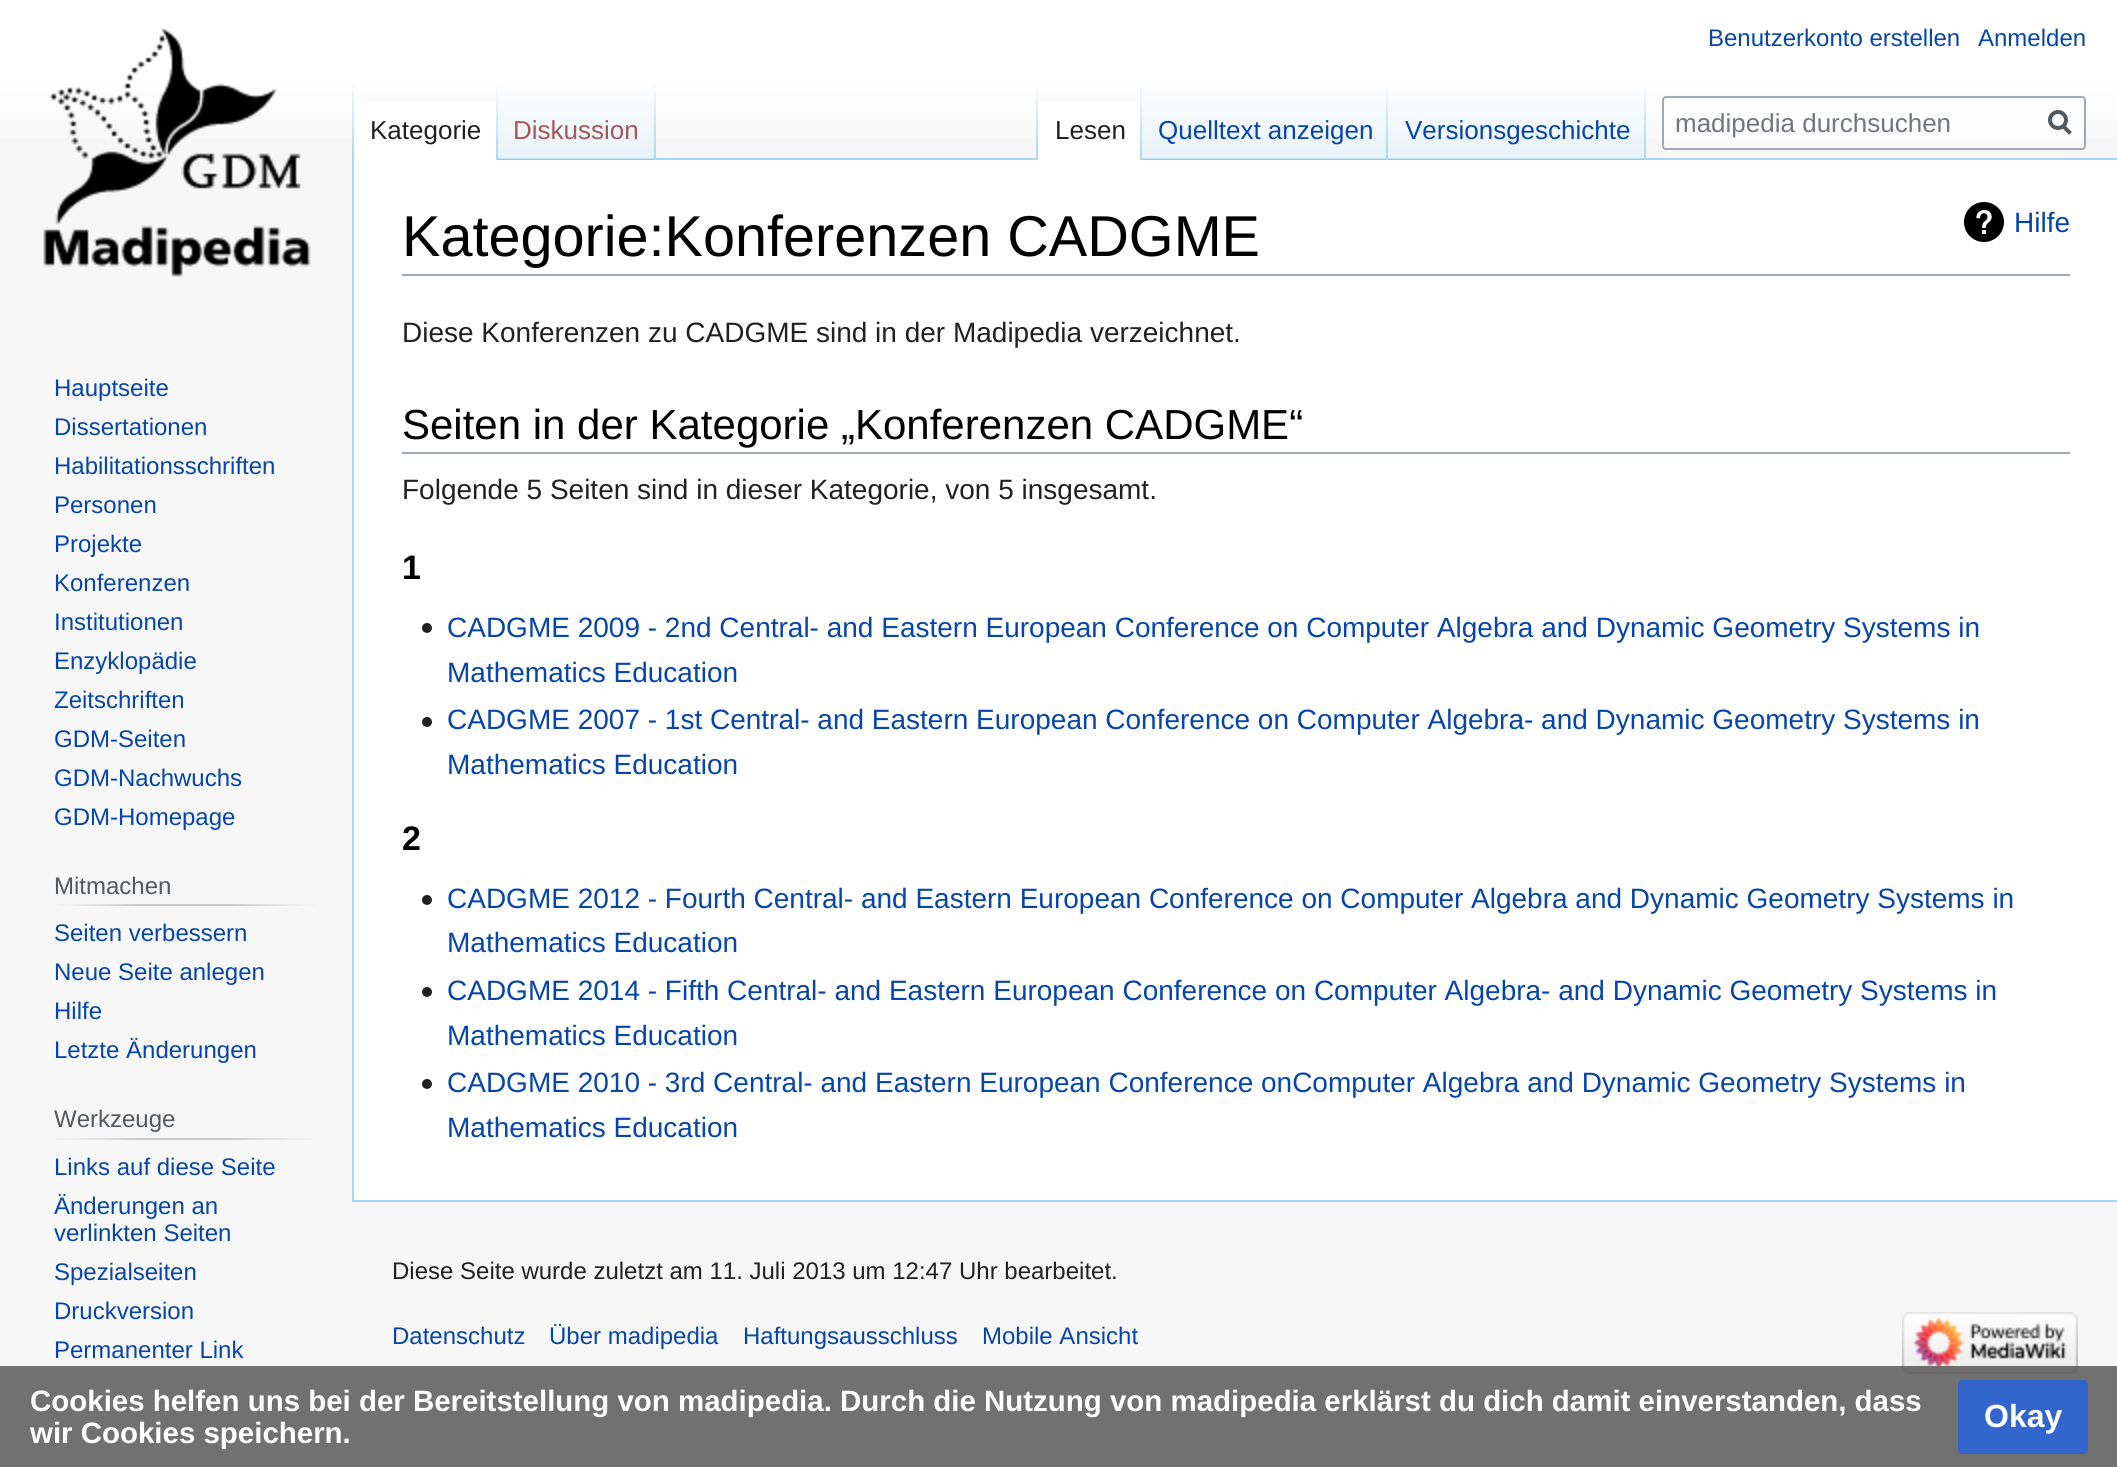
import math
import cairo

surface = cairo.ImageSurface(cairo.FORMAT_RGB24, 2117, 1467)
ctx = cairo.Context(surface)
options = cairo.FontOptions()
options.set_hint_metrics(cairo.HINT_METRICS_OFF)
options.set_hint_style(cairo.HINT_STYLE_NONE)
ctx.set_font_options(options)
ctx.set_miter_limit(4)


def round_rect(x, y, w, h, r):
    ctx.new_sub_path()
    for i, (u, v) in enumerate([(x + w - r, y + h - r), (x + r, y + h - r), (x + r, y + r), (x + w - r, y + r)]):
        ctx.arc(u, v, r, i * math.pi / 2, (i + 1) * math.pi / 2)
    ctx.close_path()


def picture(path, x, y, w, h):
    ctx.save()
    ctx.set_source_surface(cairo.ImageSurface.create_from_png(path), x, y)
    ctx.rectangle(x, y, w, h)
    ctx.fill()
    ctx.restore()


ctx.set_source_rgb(0.965, 0.965, 0.965)
ctx.paint()
gradient = cairo.LinearGradient(1059, 0, 1059, 160)
gradient.add_color_stop_rgba(0.5, 1, 1, 1, 1)
gradient.add_color_stop_rgba(1, 0.965, 0.965, 0.965, 1)
ctx.set_source(gradient)
ctx.rectangle(0, 0, 2117, 138)
ctx.fill()
ctx.select_font_face("Liberation Sans")
ctx.set_font_size(24)
ctx.set_source_rgb(0.024, 0.271, 0.678)
ctx.move_to(1708, 46)
ctx.show_text("Benutzerkonto erstellen")
ctx.move_to(1978, 46)
ctx.show_text("Anmelden")
ctx.set_source_rgb(0.655, 0.843, 0.976)
ctx.rectangle(352, 1200, 1765, 2)
ctx.fill()
ctx.rectangle(352, 158, 2, 1044)
ctx.fill()
gradient = cairo.LinearGradient(353, 80, 353, 160)
gradient.add_color_stop_rgba(0, 0.655, 0.843, 0.976, 0)
gradient.add_color_stop_rgba(1, 0.655, 0.843, 0.976, 1)
ctx.set_source(gradient)
ctx.rectangle(352, 80, 2, 80)
ctx.fill()
ctx.set_source_rgb(1, 1, 1)
ctx.rectangle(354, 102, 142, 58)
ctx.fill()
gradient = cairo.LinearGradient(497, 80, 497, 160)
gradient.add_color_stop_rgba(0, 1, 1, 1, 1)
gradient.add_color_stop_rgba(1, 0.655, 0.843, 0.976, 1)
ctx.set_source(gradient)
ctx.rectangle(496, 80, 2, 80)
ctx.fill()
ctx.set_font_size(26)
ctx.set_source_rgb(0.125, 0.129, 0.133)
ctx.move_to(370, 139)
ctx.show_text("Kategorie")
gradient = cairo.LinearGradient(577, 160, 577, 80)
gradient.add_color_stop_rgba(0, 0.467, 0.757, 0.965, 1)
gradient.add_color_stop_rgba(0.03, 0.91, 0.949, 0.973, 1)
gradient.add_color_stop_rgba(1, 1, 1, 1, 1)
ctx.set_source(gradient)
ctx.rectangle(498, 92, 158, 68)
ctx.fill()
gradient = cairo.LinearGradient(655, 80, 655, 160)
gradient.add_color_stop_rgba(0, 0.655, 0.843, 0.976, 0)
gradient.add_color_stop_rgba(1, 0.655, 0.843, 0.976, 1)
ctx.set_source(gradient)
ctx.rectangle(654, 80, 2, 80)
ctx.fill()
ctx.set_source_rgb(0.647, 0.345, 0.345)
ctx.move_to(513, 139)
ctx.show_text("Diskussion")
ctx.set_source_rgb(0.655, 0.843, 0.976)
ctx.rectangle(656, 158, 1461, 2)
ctx.fill()
gradient = cairo.LinearGradient(1037, 80, 1037, 160)
gradient.add_color_stop_rgba(0, 0.655, 0.843, 0.976, 0)
gradient.add_color_stop_rgba(1, 0.655, 0.843, 0.976, 1)
ctx.set_source(gradient)
ctx.rectangle(1036, 80, 2, 80)
ctx.fill()
ctx.set_source_rgb(1, 1, 1)
ctx.rectangle(1038, 102, 102, 58)
ctx.fill()
gradient = cairo.LinearGradient(1141, 80, 1141, 160)
gradient.add_color_stop_rgba(0, 1, 1, 1, 1)
gradient.add_color_stop_rgba(1, 0.655, 0.843, 0.976, 1)
ctx.set_source(gradient)
ctx.rectangle(1140, 80, 2, 80)
ctx.fill()
ctx.set_source_rgb(0.125, 0.129, 0.133)
ctx.move_to(1055, 139)
ctx.show_text("Lesen")
gradient = cairo.LinearGradient(1265, 160, 1265, 80)
gradient.add_color_stop_rgba(0, 0.467, 0.757, 0.965, 1)
gradient.add_color_stop_rgba(0.03, 0.91, 0.949, 0.973, 1)
gradient.add_color_stop_rgba(1, 1, 1, 1, 1)
ctx.set_source(gradient)
ctx.rectangle(1142, 92, 246, 68)
ctx.fill()
gradient = cairo.LinearGradient(1387, 80, 1387, 160)
gradient.add_color_stop_rgba(0, 0.655, 0.843, 0.976, 0)
gradient.add_color_stop_rgba(1, 0.655, 0.843, 0.976, 1)
ctx.set_source(gradient)
ctx.rectangle(1386, 80, 2, 80)
ctx.fill()
ctx.set_source_rgb(0.024, 0.271, 0.678)
ctx.move_to(1158, 139)
ctx.show_text("Quelltext anzeigen")
gradient = cairo.LinearGradient(1517, 160, 1517, 80)
gradient.add_color_stop_rgba(0, 0.467, 0.757, 0.965, 1)
gradient.add_color_stop_rgba(0.03, 0.91, 0.949, 0.973, 1)
gradient.add_color_stop_rgba(1, 1, 1, 1, 1)
ctx.set_source(gradient)
ctx.rectangle(1388, 92, 258, 68)
ctx.fill()
gradient = cairo.LinearGradient(1645, 80, 1645, 160)
gradient.add_color_stop_rgba(0, 0.655, 0.843, 0.976, 0)
gradient.add_color_stop_rgba(1, 0.655, 0.843, 0.976, 1)
ctx.set_source(gradient)
ctx.rectangle(1644, 80, 2, 80)
ctx.fill()
ctx.set_source_rgb(0.024, 0.271, 0.678)
ctx.move_to(1405, 139)
ctx.show_text("Versionsgeschichte")
ctx.set_source_rgba(1, 1, 1, 0.5)
round_rect(1663, 97, 422, 52, 3)
ctx.fill_preserve()
ctx.set_source_rgb(0.635, 0.663, 0.694)
ctx.stroke()
ctx.set_source_rgb(0.447, 0.467, 0.49)
ctx.move_to(1675, 132)
ctx.show_text("madipedia durchsuchen")
ctx.new_path()
ctx.move_to(2070.5, 133.5)
ctx.line_to(2062.5, 125.5)
ctx.set_source_rgb(0.329, 0.349, 0.365)
ctx.set_line_width(4)
ctx.stroke()
ctx.arc(2058, 120, 8, 0, 2 * math.pi)
ctx.stroke()
picture("img1.png", 43, 27, 268, 250)
ctx.set_font_size(24)
ctx.set_source_rgb(0.024, 0.271, 0.678)
ctx.move_to(54, 396)
ctx.show_text("Hauptseite")
ctx.move_to(54, 435)
ctx.show_text("Dissertationen")
ctx.move_to(54, 474)
ctx.show_text("Habilitationsschriften")
ctx.move_to(54, 513)
ctx.show_text("Personen")
ctx.move_to(54, 552)
ctx.show_text("Projekte")
ctx.move_to(54, 591)
ctx.show_text("Konferenzen")
ctx.move_to(54, 630)
ctx.show_text("Institutionen")
ctx.move_to(54, 669)
ctx.show_text("Enzyklopädie")
ctx.move_to(54, 708)
ctx.show_text("Zeitschriften")
ctx.move_to(54, 747)
ctx.show_text("GDM-Seiten")
ctx.move_to(54, 786)
ctx.show_text("GDM-Nachwuchs")
ctx.move_to(54, 825)
ctx.show_text("GDM-Homepage")
gradient = cairo.LinearGradient(54, 905, 316, 905)
gradient.add_color_stop_rgba(0, 0.965, 0.965, 0.965, 1)
gradient.add_color_stop_rgba(0.33, 0.784, 0.8, 0.82, 1)
gradient.add_color_stop_rgba(0.66, 0.784, 0.8, 0.82, 1)
gradient.add_color_stop_rgba(1, 0.965, 0.965, 0.965, 1)
ctx.set_source(gradient)
ctx.rectangle(54, 904, 262, 2)
ctx.fill()
ctx.set_source_rgb(0.329, 0.349, 0.365)
ctx.move_to(54, 894)
ctx.show_text("Mitmachen")
ctx.set_source_rgb(0.024, 0.271, 0.678)
ctx.move_to(54, 941)
ctx.show_text("Seiten verbessern")
ctx.move_to(54, 980)
ctx.show_text("Neue Seite anlegen")
ctx.move_to(54, 1019)
ctx.show_text("Hilfe")
ctx.move_to(54, 1058)
ctx.show_text("Letzte Änderungen")
gradient = cairo.LinearGradient(54, 1139, 316, 1139)
gradient.add_color_stop_rgba(0, 0.965, 0.965, 0.965, 1)
gradient.add_color_stop_rgba(0.33, 0.784, 0.8, 0.82, 1)
gradient.add_color_stop_rgba(0.66, 0.784, 0.8, 0.82, 1)
gradient.add_color_stop_rgba(1, 0.965, 0.965, 0.965, 1)
ctx.set_source(gradient)
ctx.rectangle(54, 1138, 262, 2)
ctx.fill()
ctx.set_source_rgb(0.329, 0.349, 0.365)
ctx.move_to(54, 1127)
ctx.show_text("Werkzeuge")
ctx.set_source_rgb(0.024, 0.271, 0.678)
ctx.move_to(54, 1175)
ctx.show_text("Links auf diese Seite")
ctx.move_to(54, 1214)
ctx.show_text("Änderungen an")
ctx.move_to(54, 1241)
ctx.show_text("verlinkten Seiten")
ctx.move_to(54, 1280)
ctx.show_text("Spezialseiten")
ctx.move_to(54, 1319)
ctx.show_text("Druckversion")
ctx.move_to(54, 1358)
ctx.show_text("Permanenter Link")
ctx.set_source_rgb(1, 1, 1)
ctx.rectangle(354, 160, 1763, 1040)
ctx.fill()
ctx.set_source_rgb(0.635, 0.663, 0.694)
ctx.rectangle(402, 274, 1668, 2)
ctx.fill()
ctx.set_font_size(57.6)
ctx.set_source_rgb(0, 0, 0)
ctx.move_to(402, 256)
ctx.show_text("Kategorie:Konferenzen CADGME")
picture("img2.png", 1964, 202, 40, 40)
ctx.set_font_size(28)
ctx.set_source_rgb(0.024, 0.271, 0.678)
ctx.move_to(2014, 232)
ctx.show_text("Hilfe")
ctx.set_source_rgb(0.125, 0.129, 0.133)
ctx.move_to(402, 342)
ctx.show_text("Diese Konferenzen zu CADGME sind in der Madipedia verzeichnet.")
ctx.set_source_rgb(0.635, 0.663, 0.694)
ctx.rectangle(402, 452, 1668, 2)
ctx.fill()
ctx.set_font_size(42)
ctx.set_source_rgb(0, 0, 0)
ctx.move_to(402, 439)
ctx.show_text("Seiten in der Kategorie „Konferenzen CADGME“")
ctx.set_font_size(28)
ctx.set_source_rgb(0.125, 0.129, 0.133)
ctx.move_to(402, 499)
ctx.show_text("Folgende 5 Seiten sind in dieser Kategorie, von 5 insgesamt.")
ctx.select_font_face("Liberation Sans", cairo.FONT_SLANT_NORMAL, cairo.FONT_WEIGHT_BOLD)
ctx.set_font_size(34)
ctx.set_source_rgb(0, 0, 0)
ctx.move_to(402, 579)
ctx.show_text("1")
picture("img3.png", 422, 623, 10, 10)
ctx.select_font_face("Liberation Sans")
ctx.set_font_size(28)
ctx.set_source_rgb(0.024, 0.271, 0.678)
ctx.move_to(447, 637)
ctx.show_text("CADGME 2009 - 2nd Central- and Eastern European Conference on Computer Algebra and Dynamic Geometry Systems in")
ctx.move_to(447, 682)
ctx.show_text("Mathematics Education")
picture("img3.png", 422, 717, 10, 10)
ctx.move_to(447, 729)
ctx.show_text("CADGME 2007 - 1st Central- and Eastern European Conference on Computer Algebra- and Dynamic Geometry Systems in")
ctx.move_to(447, 774)
ctx.show_text("Mathematics Education")
ctx.select_font_face("Liberation Sans", cairo.FONT_SLANT_NORMAL, cairo.FONT_WEIGHT_BOLD)
ctx.set_font_size(34)
ctx.set_source_rgb(0, 0, 0)
ctx.move_to(402, 850)
ctx.show_text("2")
picture("img3.png", 422, 895, 10, 10)
ctx.select_font_face("Liberation Sans")
ctx.set_font_size(28)
ctx.set_source_rgb(0.024, 0.271, 0.678)
ctx.move_to(447, 908)
ctx.show_text("CADGME 2012 - Fourth Central- and Eastern European Conference on Computer Algebra and Dynamic Geometry Systems in")
ctx.move_to(447, 952)
ctx.show_text("Mathematics Education")
picture("img3.png", 422, 987, 10, 10)
ctx.move_to(447, 1000)
ctx.show_text("CADGME 2014 - Fifth Central- and Eastern European Conference on Computer Algebra- and Dynamic Geometry Systems in")
ctx.move_to(447, 1045)
ctx.show_text("Mathematics Education")
picture("img3.png", 422, 1079, 10, 10)
ctx.move_to(447, 1092)
ctx.show_text("CADGME 2010 - 3rd Central- and Eastern European Conference onComputer Algebra and Dynamic Geometry Systems in")
ctx.move_to(447, 1137)
ctx.show_text("Mathematics Education")
ctx.set_font_size(24)
ctx.set_source_rgb(0.125, 0.129, 0.133)
ctx.move_to(392, 1279)
ctx.show_text("Diese Seite wurde zuletzt am 11. Juli 2013 um 12:47 Uhr bearbeitet.")
ctx.set_source_rgb(0.024, 0.271, 0.678)
ctx.move_to(392, 1344)
ctx.show_text("Datenschutz")
ctx.move_to(549, 1344)
ctx.show_text("Über madipedia")
ctx.move_to(743, 1344)
ctx.show_text("Haftungsausschluss")
ctx.move_to(982, 1344)
ctx.show_text("Mobile Ansicht")
picture("img4.png", 1902, 1312, 176, 62)
ctx.set_source_rgba(0.353, 0.353, 0.353, 0.85)
ctx.rectangle(0, 1366, 2117, 101)
ctx.fill()
ctx.select_font_face("Liberation Sans", cairo.FONT_SLANT_NORMAL, cairo.FONT_WEIGHT_BOLD)
ctx.set_font_size(29.45)
ctx.set_source_rgb(1, 1, 1)
ctx.move_to(30, 1411)
ctx.show_text("Cookies helfen uns bei der Bereitstellung von madipedia. Durch die Nutzung von madipedia erklärst du dich damit einverstanden, dass")
ctx.move_to(30, 1443)
ctx.show_text("wir Cookies speichern.")
ctx.set_source_rgb(0.2, 0.4, 0.8)
round_rect(1959, 1381, 128, 72, 3)
ctx.fill_preserve()
ctx.set_line_width(2)
ctx.stroke()
ctx.set_font_size(32)
ctx.set_source_rgb(1, 1, 1)
ctx.move_to(1984, 1427)
ctx.show_text("Okay")
surface.write_to_png("page.png")
